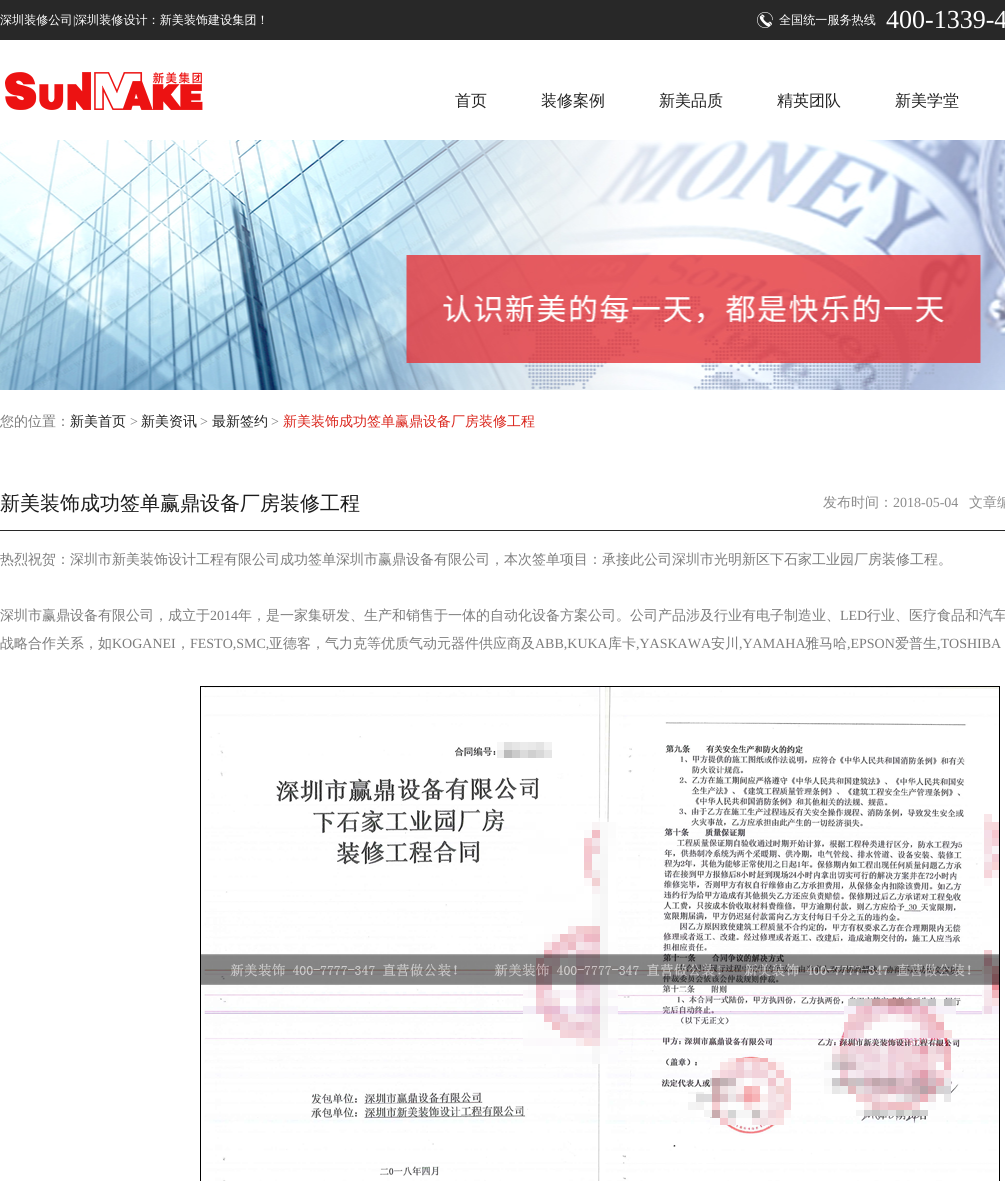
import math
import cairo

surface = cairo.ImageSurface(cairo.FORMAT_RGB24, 1005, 1181)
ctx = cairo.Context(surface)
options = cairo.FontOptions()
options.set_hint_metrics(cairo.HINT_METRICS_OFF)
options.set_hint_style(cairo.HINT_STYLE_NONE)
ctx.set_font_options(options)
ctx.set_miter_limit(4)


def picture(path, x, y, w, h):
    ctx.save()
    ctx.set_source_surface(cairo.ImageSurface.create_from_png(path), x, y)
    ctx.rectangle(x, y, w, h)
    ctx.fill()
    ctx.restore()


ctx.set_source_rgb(1, 1, 1)
ctx.paint()
ctx.set_source_rgb(0.157, 0.157, 0.157)
ctx.rectangle(0, 0, 1005, 40)
ctx.fill()
ctx.select_font_face("WenQuanYi Zen Hei Medium")
ctx.set_font_size(12.1)
ctx.set_source_rgb(1, 1, 1)
ctx.move_to(0, 24)
ctx.show_text("深圳装修公司")
ctx.select_font_face("Liberation Serif")
ctx.move_to(73, 24)
ctx.show_text("|")
ctx.select_font_face("WenQuanYi Zen Hei Medium")
ctx.move_to(75, 24)
ctx.show_text("深圳装修设计：新美装饰建设集团！")
picture("img1.png", 757, 12, 16, 16)
ctx.move_to(779, 24)
ctx.show_text("全国统一服务热线")
ctx.select_font_face("Liberation Serif")
ctx.set_font_size(26)
ctx.move_to(886, 28)
ctx.show_text("400-1339-4")
picture("img2.png", 5, 72, 198, 38)
ctx.select_font_face("WenQuanYi Zen Hei Medium")
ctx.set_font_size(16)
ctx.set_source_rgb(0.133, 0.133, 0.133)
ctx.move_to(455, 106)
ctx.show_text("首页")
ctx.move_to(541, 106)
ctx.show_text("装修案例")
ctx.move_to(659, 106)
ctx.show_text("新美品质")
ctx.move_to(777, 106)
ctx.show_text("精英团队")
ctx.move_to(895, 106)
ctx.show_text("新美学堂")
picture("img3.png", 0, 140, 1005, 250)
ctx.set_font_size(14)
ctx.set_source_rgb(0.486, 0.486, 0.486)
ctx.move_to(0, 426)
ctx.show_text("您的位置：")
ctx.set_source_rgb(0.133, 0.133, 0.133)
ctx.move_to(70, 426)
ctx.show_text("新美首页")
ctx.select_font_face("Liberation Serif")
ctx.set_source_rgb(0.486, 0.486, 0.486)
ctx.move_to(130, 426)
ctx.show_text(">")
ctx.select_font_face("WenQuanYi Zen Hei Medium")
ctx.set_source_rgb(0.133, 0.133, 0.133)
ctx.move_to(141, 426)
ctx.show_text("新美资讯")
ctx.select_font_face("Liberation Serif")
ctx.set_source_rgb(0.486, 0.486, 0.486)
ctx.move_to(200, 426)
ctx.show_text(">")
ctx.select_font_face("WenQuanYi Zen Hei Medium")
ctx.set_source_rgb(0.133, 0.133, 0.133)
ctx.move_to(212, 426)
ctx.show_text("最新签约")
ctx.select_font_face("Liberation Serif")
ctx.set_source_rgb(0.486, 0.486, 0.486)
ctx.move_to(271, 426)
ctx.show_text(">")
ctx.select_font_face("WenQuanYi Zen Hei Medium")
ctx.set_source_rgb(0.855, 0.145, 0.11)
ctx.move_to(283, 426)
ctx.show_text("新美装饰成功签单赢鼎设备厂房装修工程")
ctx.set_source_rgb(0.157, 0.157, 0.157)
ctx.rectangle(0, 530, 1005, 1)
ctx.fill()
ctx.set_font_size(20)
ctx.set_source_rgb(0.102, 0.102, 0.102)
ctx.move_to(0, 510)
ctx.show_text("新美装饰成功签单赢鼎设备厂房装修工程")
ctx.set_font_size(14)
ctx.set_source_rgb(0.549, 0.549, 0.549)
ctx.move_to(823, 507)
ctx.show_text("发布时间：")
ctx.select_font_face("Liberation Serif")
ctx.move_to(893, 507)
ctx.show_text("2018-05-04")
ctx.select_font_face("WenQuanYi Zen Hei Medium")
ctx.move_to(969, 507)
ctx.show_text("文章编")
ctx.set_source_rgb(0.486, 0.486, 0.486)
ctx.move_to(0, 564)
ctx.show_text("热烈祝贺：深圳市新美装饰设计工程有限公司成功签单深圳市赢鼎设备有限公司，本次签单项目：承接此公司深圳市光明新区下石家工业园厂房装修工程。")
ctx.move_to(0, 620)
ctx.show_text("深圳市赢鼎设备有限公司，成立于")
ctx.select_font_face("Liberation Serif")
ctx.move_to(210, 620)
ctx.show_text("2014")
ctx.select_font_face("WenQuanYi Zen Hei Medium")
ctx.move_to(238, 620)
ctx.show_text("年，是一家集研发、生产和销售于一体的自动化设备方案公司。公司产品涉及行业有电子制造业、")
ctx.select_font_face("Liberation Serif")
ctx.move_to(840, 620)
ctx.show_text("LED")
ctx.select_font_face("WenQuanYi Zen Hei Medium")
ctx.move_to(867, 620)
ctx.show_text("行业、医疗食品和汽车")
ctx.move_to(0, 648)
ctx.show_text("战略合作关系，如")
ctx.select_font_face("Liberation Serif")
ctx.move_to(112, 648)
ctx.show_text("KOGANEI")
ctx.select_font_face("WenQuanYi Zen Hei Medium")
ctx.move_to(176, 648)
ctx.show_text("，")
ctx.select_font_face("Liberation Serif")
ctx.move_to(190, 648)
ctx.show_text("FESTO,SMC,")
ctx.select_font_face("WenQuanYi Zen Hei Medium")
ctx.move_to(269, 648)
ctx.show_text("亚德客，气力克等优质气动元器件供应商及")
ctx.select_font_face("Liberation Serif")
ctx.move_to(535, 648)
ctx.show_text("ABB,KUKA")
ctx.select_font_face("WenQuanYi Zen Hei Medium")
ctx.move_to(608, 648)
ctx.show_text("库卡")
ctx.select_font_face("Liberation Serif")
ctx.move_to(636, 648)
ctx.show_text(",YASKAWA")
ctx.select_font_face("WenQuanYi Zen Hei Medium")
ctx.move_to(711, 648)
ctx.show_text("安川")
ctx.select_font_face("Liberation Serif")
ctx.move_to(739, 648)
ctx.show_text(",YAMAHA")
ctx.select_font_face("WenQuanYi Zen Hei Medium")
ctx.move_to(805, 648)
ctx.show_text("雅马哈")
ctx.select_font_face("Liberation Serif")
ctx.move_to(847, 648)
ctx.show_text(",EPSON")
ctx.select_font_face("WenQuanYi Zen Hei Medium")
ctx.move_to(895, 648)
ctx.show_text("爱普生")
ctx.select_font_face("Liberation Serif")
ctx.move_to(937, 648)
ctx.show_text(",TOSHIBA")
picture("img4.png", 200, 686, 800, 495)
surface.write_to_png("page.png")
